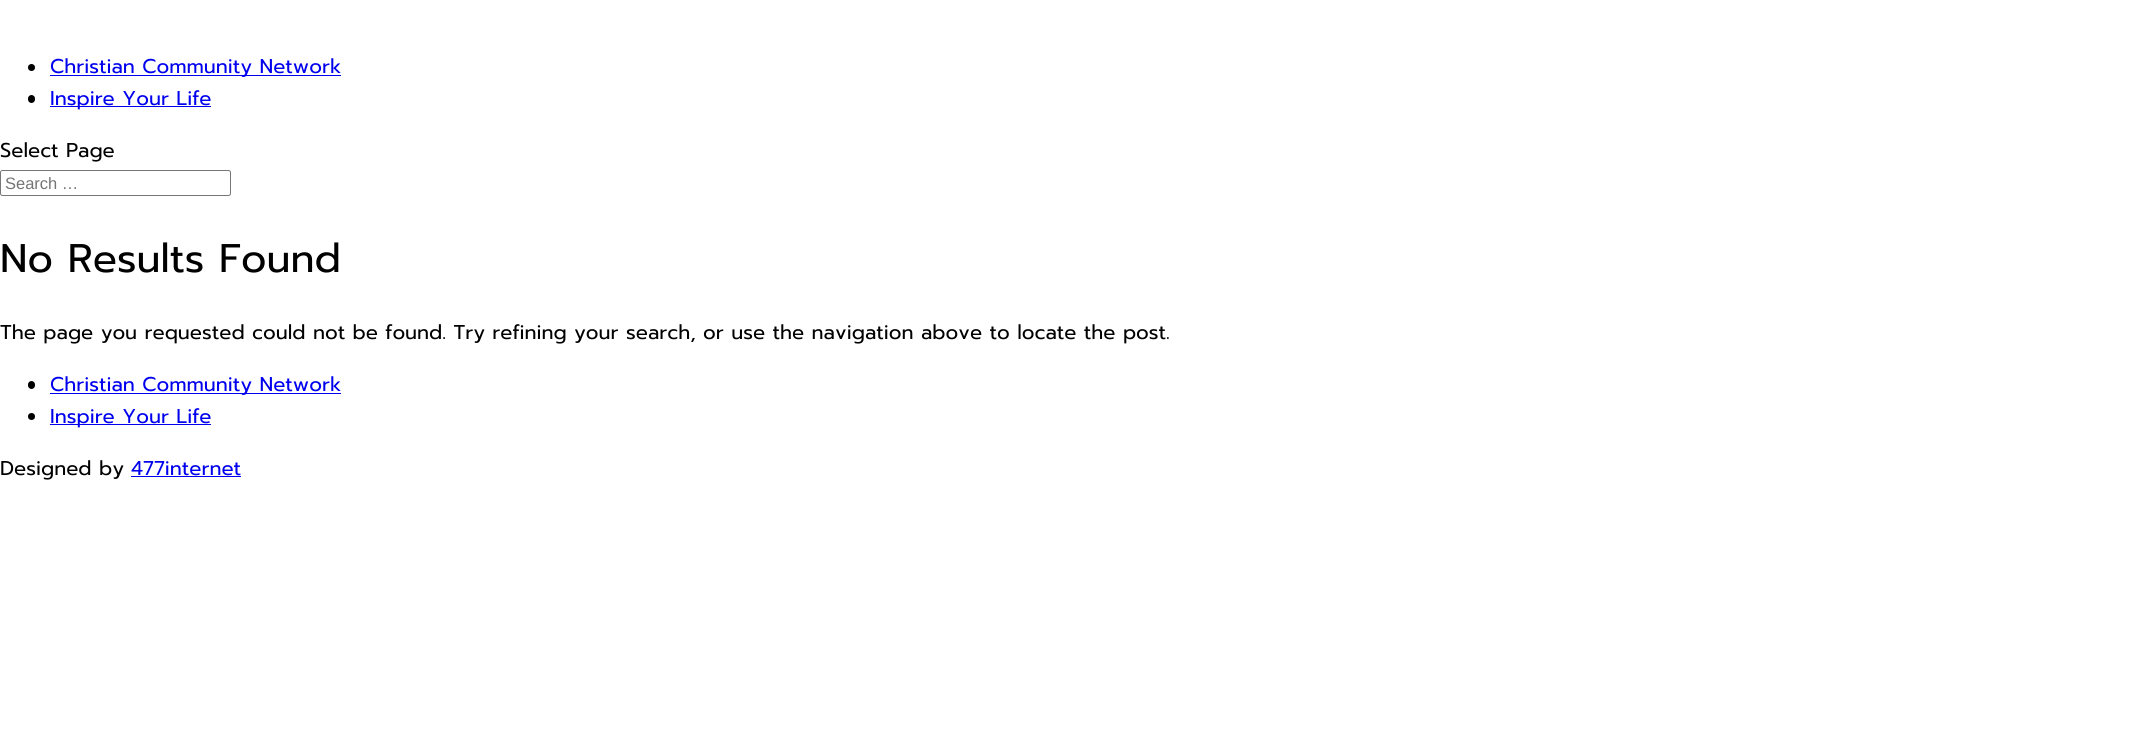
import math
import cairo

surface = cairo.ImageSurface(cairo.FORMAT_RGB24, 2151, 752)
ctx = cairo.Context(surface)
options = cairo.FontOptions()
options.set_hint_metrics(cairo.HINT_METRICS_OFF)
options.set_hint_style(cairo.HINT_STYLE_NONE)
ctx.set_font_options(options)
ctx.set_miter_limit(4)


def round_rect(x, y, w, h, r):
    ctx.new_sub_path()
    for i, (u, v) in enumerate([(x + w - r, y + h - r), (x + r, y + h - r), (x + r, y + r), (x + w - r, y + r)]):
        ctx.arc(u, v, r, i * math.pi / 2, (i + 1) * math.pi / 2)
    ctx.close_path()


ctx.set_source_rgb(1, 1, 1)
ctx.paint()
ctx.set_source_rgb(0, 0, 0)
ctx.arc(31.5, 67.5, 3.5, 0, 2 * math.pi)
ctx.fill()
ctx.set_source_rgb(0, 0, 0.933)
ctx.rectangle(50, 75, 291, 1)
ctx.fill()
ctx.select_font_face("Prompt")
ctx.set_font_size(20)
ctx.move_to(50, 73)
ctx.show_text("Christian Community Network")
ctx.set_source_rgb(0, 0, 0)
round_rect(28, 95, 7, 8, 3.5)
ctx.fill()
ctx.set_source_rgb(0, 0, 0.933)
ctx.rectangle(50, 106, 161, 1)
ctx.fill()
ctx.move_to(50, 105)
ctx.show_text("Inspire Your Life")
ctx.set_source_rgb(0, 0, 0)
ctx.move_to(0, 157)
ctx.show_text("Select Page")
round_rect(0.5, 170.5, 230, 25, 2)
ctx.set_source_rgb(0.463, 0.463, 0.463)
ctx.set_line_width(1)
ctx.stroke()
ctx.select_font_face("Liberation Sans")
ctx.set_font_size(16.5)
ctx.set_source_rgb(0.459, 0.459, 0.459)
ctx.move_to(5, 189)
ctx.show_text("Search …")
ctx.select_font_face("Prompt")
ctx.set_font_size(40)
ctx.set_source_rgb(0, 0, 0)
ctx.move_to(0, 272)
ctx.show_text("No Results Found")
ctx.set_font_size(20)
ctx.move_to(0, 339)
ctx.show_text("The page you requested could not be found. Try refining your search, or use the navigation above to locate the post.")
round_rect(28, 381, 7, 8, 3.5)
ctx.fill()
ctx.set_source_rgb(0, 0, 0.933)
ctx.rectangle(50, 393, 291, 1)
ctx.fill()
ctx.move_to(50, 391)
ctx.show_text("Christian Community Network")
ctx.set_source_rgb(0, 0, 0)
ctx.new_path()
ctx.arc(31.5, 416.5, 3.5, 0, 2 * math.pi)
ctx.fill()
ctx.set_source_rgb(0, 0, 0.933)
ctx.rectangle(50, 424, 161, 1)
ctx.fill()
ctx.move_to(50, 423)
ctx.show_text("Inspire Your Life")
ctx.set_source_rgb(0, 0, 0)
ctx.move_to(0, 475)
ctx.show_text("Designed by")
ctx.set_source_rgb(0, 0, 0.933)
ctx.move_to(131, 475)
ctx.show_text("477internet")
ctx.rectangle(131, 476, 110, 1)
ctx.fill()
surface.write_to_png("page.png")
